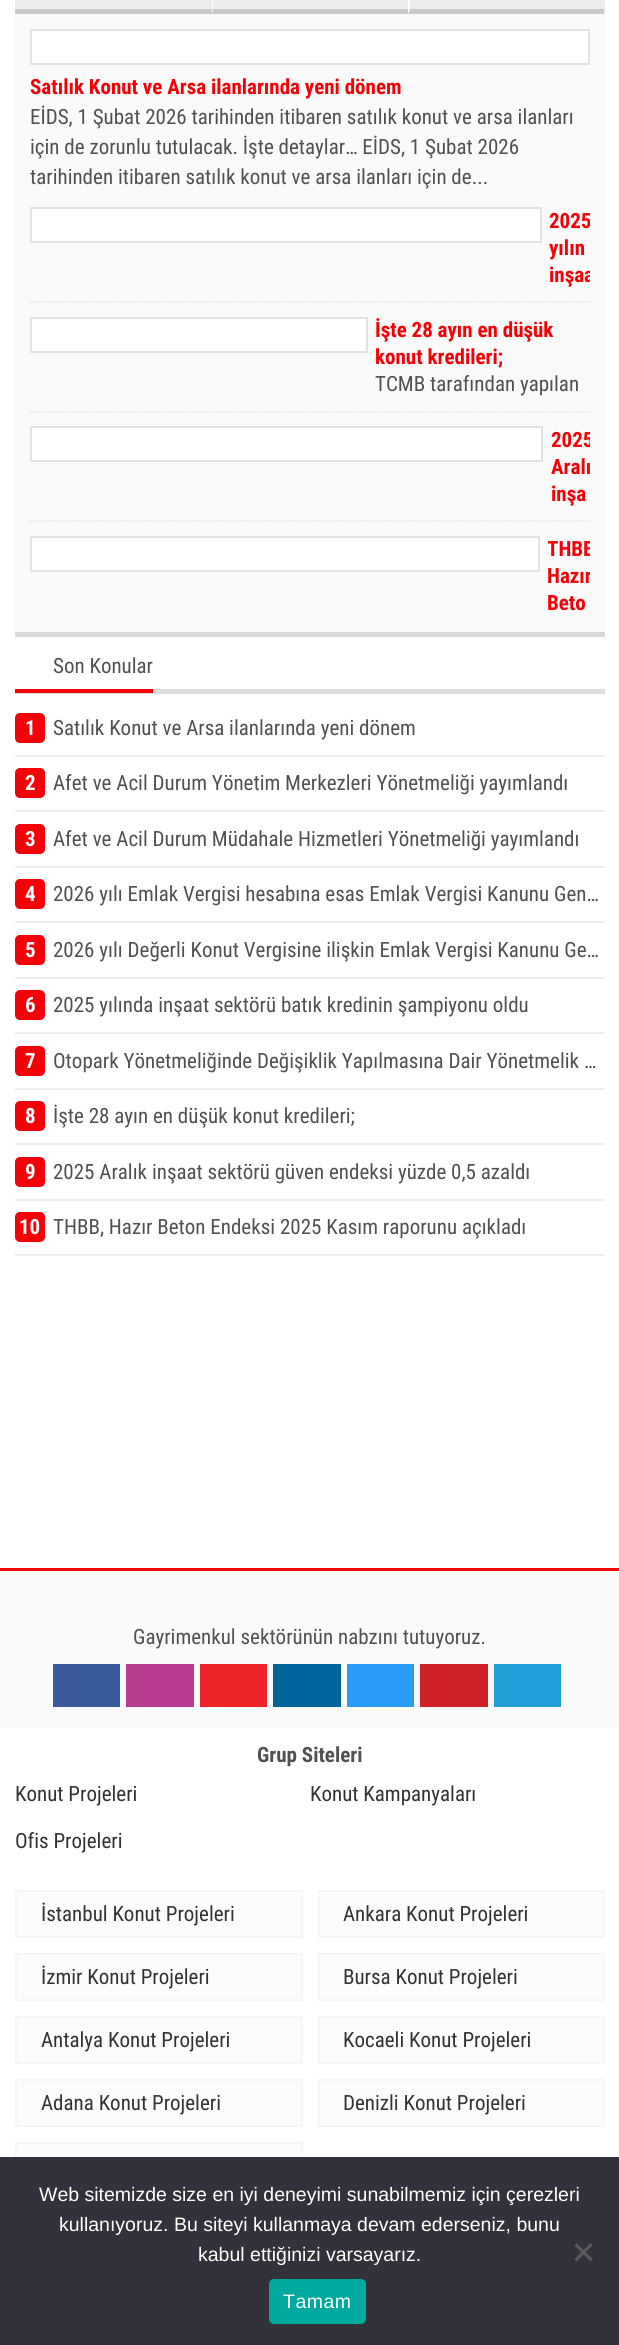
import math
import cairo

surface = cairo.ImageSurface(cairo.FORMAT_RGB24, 619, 2345)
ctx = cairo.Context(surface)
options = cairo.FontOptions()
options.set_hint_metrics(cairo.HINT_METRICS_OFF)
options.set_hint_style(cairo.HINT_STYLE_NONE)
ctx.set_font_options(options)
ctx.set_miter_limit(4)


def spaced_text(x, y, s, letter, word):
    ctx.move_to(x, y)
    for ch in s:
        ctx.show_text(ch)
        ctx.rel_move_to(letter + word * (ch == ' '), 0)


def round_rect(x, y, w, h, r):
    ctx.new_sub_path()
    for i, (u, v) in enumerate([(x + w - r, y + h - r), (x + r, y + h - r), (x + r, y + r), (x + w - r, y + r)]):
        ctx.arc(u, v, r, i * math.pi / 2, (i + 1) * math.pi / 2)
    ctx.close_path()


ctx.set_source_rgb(1, 1, 1)
ctx.paint()
ctx.set_source_rgb(0.925, 0.925, 0.925)
ctx.rectangle(15, 0, 197, 9)
ctx.fill()
ctx.set_source_rgb(0.788, 0.788, 0.788)
ctx.rectangle(15, 9, 197, 5)
ctx.fill()
ctx.set_source_rgb(0.925, 0.925, 0.925)
ctx.rectangle(212, 0, 393, 14)
ctx.fill()
ctx.set_source_rgb(0.788, 0.788, 0.788)
ctx.new_path()
ctx.move_to(408, 14)
ctx.line_to(212, 14)
ctx.line_to(213, 9)
ctx.line_to(408, 9)
ctx.close_path()
ctx.fill()
ctx.set_source_rgb(1, 1, 1)
ctx.new_path()
ctx.move_to(212, 14)
ctx.line_to(212, -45)
ctx.line_to(213, -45)
ctx.line_to(213, 9)
ctx.close_path()
ctx.fill()
ctx.set_source_rgb(0.788, 0.788, 0.788)
ctx.new_path()
ctx.move_to(604, 14)
ctx.line_to(408, 14)
ctx.line_to(410, 9)
ctx.line_to(604, 9)
ctx.close_path()
ctx.fill()
ctx.set_source_rgb(1, 1, 1)
ctx.new_path()
ctx.move_to(408, 14)
ctx.line_to(408, -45)
ctx.line_to(410, -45)
ctx.line_to(410, 9)
ctx.close_path()
ctx.fill()
ctx.set_source_rgb(0.98, 0.98, 0.98)
ctx.rectangle(15, 14, 590, 618)
ctx.fill()
ctx.set_source_rgb(0.851, 0.851, 0.851)
ctx.rectangle(15, 632, 590, 5)
ctx.fill()
ctx.set_source_rgb(1, 1, 1)
ctx.rectangle(31, 30, 558, 34)
ctx.fill_preserve()
ctx.set_source_rgb(0.886, 0.886, 0.886)
ctx.stroke()
ctx.select_font_face("Roboto Condensed", cairo.FONT_SLANT_NORMAL, cairo.FONT_WEIGHT_BOLD)
ctx.set_font_size(21)
ctx.set_source_rgb(0.961, 0, 0.031)
ctx.move_to(30, 94)
ctx.show_text("Satılık Konut ve Arsa ilanlarında yeni dönem")
ctx.select_font_face("Roboto Condensed")
ctx.set_source_rgb(0.318, 0.318, 0.318)
ctx.move_to(30, 124)
ctx.show_text("EİDS, 1 Şubat 2026 tarihinden itibaren satılık konut ve arsa ilanları")
ctx.move_to(30, 154)
ctx.show_text("için de zorunlu tutulacak. İşte detaylar… EİDS, 1 Şubat 2026")
ctx.move_to(30, 184)
ctx.show_text("tarihinden itibaren satılık konut ve arsa ilanları için de...")
ctx.set_source_rgb(1, 1, 1)
ctx.rectangle(31, 208, 510, 34)
ctx.fill_preserve()
ctx.set_source_rgb(0.886, 0.886, 0.886)
ctx.stroke()
ctx.save()
ctx.rectangle(549, 207, 41, 81)
ctx.clip()
ctx.select_font_face("Roboto Condensed", cairo.FONT_SLANT_NORMAL, cairo.FONT_WEIGHT_BOLD)
ctx.set_source_rgb(0.961, 0, 0.031)
ctx.move_to(549, 228)
ctx.show_text("2025")
ctx.restore()
ctx.select_font_face("Roboto Condensed", cairo.FONT_SLANT_NORMAL, cairo.FONT_WEIGHT_BOLD)
ctx.set_source_rgb(0.961, 0, 0.031)
ctx.move_to(549, 255)
ctx.show_text("yılın")
ctx.save()
ctx.rectangle(549, 207, 41, 81)
ctx.clip()
ctx.move_to(549, 282)
ctx.show_text("inşaa")
ctx.restore()
ctx.new_path()
ctx.move_to(30, 302)
ctx.line_to(589.5, 302)
ctx.set_source_rgb(0.886, 0.886, 0.886)
ctx.set_line_width(1.5)
ctx.set_dash([1.5, 1.5])
ctx.stroke()
ctx.set_source_rgb(1, 1, 1)
ctx.rectangle(31, 318, 336, 34)
ctx.fill_preserve()
ctx.set_source_rgb(0.886, 0.886, 0.886)
ctx.set_line_width(2)
ctx.set_dash([])
ctx.stroke()
ctx.set_source_rgb(0.961, 0, 0.031)
ctx.move_to(375, 337)
ctx.show_text("İşte 28 ayın en düşük")
ctx.move_to(375, 364)
ctx.show_text("konut kredileri;")
ctx.select_font_face("Roboto Condensed")
ctx.set_source_rgb(0.318, 0.318, 0.318)
ctx.move_to(375, 391)
ctx.show_text("TCMB tarafından yapılan")
ctx.new_path()
ctx.move_to(30, 412)
ctx.line_to(589.5, 412)
ctx.set_source_rgb(0.886, 0.886, 0.886)
ctx.set_line_width(1.5)
ctx.set_dash([1.5, 1.5])
ctx.stroke()
ctx.set_source_rgb(1, 1, 1)
ctx.rectangle(31, 427, 511, 34)
ctx.fill_preserve()
ctx.set_source_rgb(0.886, 0.886, 0.886)
ctx.set_line_width(2)
ctx.set_dash([])
ctx.stroke()
ctx.save()
ctx.rectangle(551, 426, 39, 81)
ctx.clip()
ctx.select_font_face("Roboto Condensed", cairo.FONT_SLANT_NORMAL, cairo.FONT_WEIGHT_BOLD)
ctx.set_source_rgb(0.961, 0, 0.031)
ctx.move_to(551, 447)
ctx.show_text("2025")
ctx.restore()
ctx.select_font_face("Roboto Condensed", cairo.FONT_SLANT_NORMAL, cairo.FONT_WEIGHT_BOLD)
ctx.set_source_rgb(0.961, 0, 0.031)
ctx.move_to(551, 474)
ctx.show_text("Aralı")
ctx.move_to(551, 501)
ctx.show_text("inşa")
ctx.new_path()
ctx.move_to(30, 521)
ctx.line_to(589.5, 521)
ctx.set_source_rgb(0.886, 0.886, 0.886)
ctx.set_line_width(1.5)
ctx.set_dash([1.5, 1.5])
ctx.stroke()
ctx.set_source_rgb(1, 1, 1)
ctx.rectangle(31, 537, 508, 34)
ctx.fill_preserve()
ctx.set_source_rgb(0.886, 0.886, 0.886)
ctx.set_line_width(2)
ctx.set_dash([])
ctx.stroke()
ctx.save()
ctx.rectangle(548, 536, 42, 81)
ctx.clip()
ctx.set_source_rgb(0.961, 0, 0.031)
ctx.move_to(547, 556)
ctx.show_text("THBB")
ctx.move_to(547, 583)
ctx.show_text("Hazır")
ctx.restore()
ctx.set_source_rgb(0.961, 0, 0.031)
ctx.move_to(547, 610)
ctx.show_text("Beto")
ctx.set_source_rgb(0.867, 0.867, 0.867)
ctx.rectangle(15, 689, 590, 5)
ctx.fill()
ctx.set_source_rgb(0.961, 0, 0.031)
ctx.rectangle(15, 689, 138, 4)
ctx.fill()
ctx.select_font_face("Roboto Condensed")
ctx.set_source_rgb(0.318, 0.318, 0.318)
ctx.move_to(53, 673)
ctx.show_text("Son Konular")
ctx.set_source_rgb(0.933, 0.933, 0.933)
ctx.rectangle(15, 755, 590, 2)
ctx.fill()
ctx.set_source_rgb(0.961, 0, 0.031)
round_rect(15, 713, 30, 30, 5)
ctx.fill()
ctx.select_font_face("Roboto Condensed", cairo.FONT_SLANT_NORMAL, cairo.FONT_WEIGHT_BOLD)
ctx.set_source_rgb(1, 1, 1)
ctx.move_to(25, 735)
ctx.show_text("1")
ctx.select_font_face("Roboto Condensed")
ctx.set_source_rgb(0.318, 0.318, 0.318)
ctx.move_to(53, 735)
ctx.show_text("Satılık Konut ve Arsa ilanlarında yeni dönem")
ctx.set_source_rgb(0.933, 0.933, 0.933)
ctx.rectangle(15, 810, 590, 2)
ctx.fill()
ctx.set_source_rgb(0.961, 0, 0.031)
round_rect(15, 768, 30, 30, 5)
ctx.fill()
ctx.select_font_face("Roboto Condensed", cairo.FONT_SLANT_NORMAL, cairo.FONT_WEIGHT_BOLD)
ctx.set_source_rgb(1, 1, 1)
ctx.move_to(25, 790)
ctx.show_text("2")
ctx.select_font_face("Roboto Condensed")
ctx.set_source_rgb(0.318, 0.318, 0.318)
ctx.move_to(53, 790)
ctx.show_text("Afet ve Acil Durum Yönetim Merkezleri Yönetmeliği yayımlandı")
ctx.set_source_rgb(0.933, 0.933, 0.933)
ctx.rectangle(15, 866, 590, 2)
ctx.fill()
ctx.set_source_rgb(0.961, 0, 0.031)
round_rect(15, 824, 30, 30, 5)
ctx.fill()
ctx.select_font_face("Roboto Condensed", cairo.FONT_SLANT_NORMAL, cairo.FONT_WEIGHT_BOLD)
ctx.set_source_rgb(1, 1, 1)
ctx.move_to(25, 846)
ctx.show_text("3")
ctx.select_font_face("Roboto Condensed")
ctx.set_source_rgb(0.318, 0.318, 0.318)
ctx.move_to(53, 846)
ctx.show_text("Afet ve Acil Durum Müdahale Hizmetleri Yönetmeliği yayımlandı")
ctx.set_source_rgb(0.933, 0.933, 0.933)
ctx.rectangle(15, 921, 590, 2)
ctx.fill()
ctx.set_source_rgb(0.961, 0, 0.031)
round_rect(15, 879, 30, 30, 5)
ctx.fill()
ctx.select_font_face("Roboto Condensed", cairo.FONT_SLANT_NORMAL, cairo.FONT_WEIGHT_BOLD)
ctx.set_source_rgb(1, 1, 1)
ctx.move_to(25, 901)
ctx.show_text("4")
ctx.select_font_face("Roboto Condensed")
ctx.set_source_rgb(0.318, 0.318, 0.318)
ctx.move_to(53, 901)
ctx.show_text("2026 yılı Emlak Vergisi hesabına esas Emlak Vergisi Kanunu Gen…")
ctx.set_source_rgb(0.933, 0.933, 0.933)
ctx.rectangle(15, 977, 590, 2)
ctx.fill()
ctx.set_source_rgb(0.961, 0, 0.031)
round_rect(15, 935, 30, 30, 5)
ctx.fill()
ctx.select_font_face("Roboto Condensed", cairo.FONT_SLANT_NORMAL, cairo.FONT_WEIGHT_BOLD)
ctx.set_source_rgb(1, 1, 1)
ctx.move_to(25, 957)
ctx.show_text("5")
ctx.select_font_face("Roboto Condensed")
ctx.set_source_rgb(0.318, 0.318, 0.318)
ctx.move_to(53, 957)
ctx.show_text("2026 yılı Değerli Konut Vergisine ilişkin Emlak Vergisi Kanunu Ge…")
ctx.set_source_rgb(0.933, 0.933, 0.933)
ctx.rectangle(15, 1032, 590, 2)
ctx.fill()
ctx.set_source_rgb(0.961, 0, 0.031)
round_rect(15, 990, 30, 30, 5)
ctx.fill()
ctx.select_font_face("Roboto Condensed", cairo.FONT_SLANT_NORMAL, cairo.FONT_WEIGHT_BOLD)
ctx.set_source_rgb(1, 1, 1)
ctx.move_to(25, 1012)
ctx.show_text("6")
ctx.select_font_face("Roboto Condensed")
ctx.set_source_rgb(0.318, 0.318, 0.318)
ctx.move_to(53, 1012)
ctx.show_text("2025 yılında inşaat sektörü batık kredinin şampiyonu oldu")
ctx.set_source_rgb(0.933, 0.933, 0.933)
ctx.rectangle(15, 1088, 590, 2)
ctx.fill()
ctx.set_source_rgb(0.961, 0, 0.031)
round_rect(15, 1046, 30, 30, 5)
ctx.fill()
ctx.select_font_face("Roboto Condensed", cairo.FONT_SLANT_NORMAL, cairo.FONT_WEIGHT_BOLD)
ctx.set_source_rgb(1, 1, 1)
ctx.move_to(25, 1068)
ctx.show_text("7")
ctx.select_font_face("Roboto Condensed")
ctx.set_source_rgb(0.318, 0.318, 0.318)
ctx.move_to(53, 1068)
ctx.show_text("Otopark Yönetmeliğinde Değişiklik Yapılmasına Dair Yönetmelik …")
ctx.set_source_rgb(0.933, 0.933, 0.933)
ctx.rectangle(15, 1143, 590, 2)
ctx.fill()
ctx.set_source_rgb(0.961, 0, 0.031)
round_rect(15, 1101, 30, 30, 5)
ctx.fill()
ctx.select_font_face("Roboto Condensed", cairo.FONT_SLANT_NORMAL, cairo.FONT_WEIGHT_BOLD)
ctx.set_source_rgb(1, 1, 1)
ctx.move_to(25, 1123)
ctx.show_text("8")
ctx.select_font_face("Roboto Condensed")
ctx.set_source_rgb(0.318, 0.318, 0.318)
ctx.move_to(53, 1123)
ctx.show_text("İşte 28 ayın en düşük konut kredileri;")
ctx.set_source_rgb(0.933, 0.933, 0.933)
ctx.rectangle(15, 1199, 590, 2)
ctx.fill()
ctx.set_source_rgb(0.961, 0, 0.031)
round_rect(15, 1157, 30, 30, 5)
ctx.fill()
ctx.select_font_face("Roboto Condensed", cairo.FONT_SLANT_NORMAL, cairo.FONT_WEIGHT_BOLD)
ctx.set_source_rgb(1, 1, 1)
ctx.move_to(25, 1179)
ctx.show_text("9")
ctx.select_font_face("Roboto Condensed")
ctx.set_source_rgb(0.318, 0.318, 0.318)
ctx.move_to(53, 1179)
ctx.show_text("2025 Aralık inşaat sektörü güven endeksi yüzde 0,5 azaldı")
ctx.set_source_rgb(0.933, 0.933, 0.933)
ctx.rectangle(15, 1254, 590, 2)
ctx.fill()
ctx.set_source_rgb(0.961, 0, 0.031)
round_rect(15, 1212, 30, 30, 5)
ctx.fill()
ctx.select_font_face("Roboto Condensed", cairo.FONT_SLANT_NORMAL, cairo.FONT_WEIGHT_BOLD)
ctx.set_source_rgb(1, 1, 1)
ctx.move_to(19, 1234)
ctx.show_text("10")
ctx.select_font_face("Roboto Condensed")
ctx.set_source_rgb(0.318, 0.318, 0.318)
ctx.move_to(53, 1234)
ctx.show_text("THBB, Hazır Beton Endeksi 2025 Kasım raporunu açıkladı")
ctx.set_source_rgb(0.961, 0, 0.031)
ctx.rectangle(0, 1568, 619, 3)
ctx.fill()
ctx.set_source_rgb(0.98, 0.98, 0.98)
ctx.rectangle(0, 1571, 619, 157)
ctx.fill()
ctx.set_source_rgb(0.318, 0.318, 0.318)
ctx.move_to(133, 1644)
ctx.show_text("Gayrimenkul sektörünün nabzını tutuyoruz.")
ctx.set_source_rgb(0.22, 0.349, 0.608)
ctx.rectangle(53, 1664, 67, 43)
ctx.fill()
ctx.set_source_rgb(0.722, 0.235, 0.573)
ctx.rectangle(126, 1664, 68, 43)
ctx.fill()
ctx.set_source_rgb(0.922, 0.141, 0.161)
ctx.rectangle(200, 1664, 67, 43)
ctx.fill()
ctx.set_source_rgb(0, 0.396, 0.608)
ctx.rectangle(273, 1664, 68, 43)
ctx.fill()
ctx.set_source_rgb(0.165, 0.612, 0.965)
ctx.rectangle(347, 1664, 67, 43)
ctx.fill()
ctx.set_source_rgb(0.804, 0.129, 0.153)
ctx.rectangle(420, 1664, 68, 43)
ctx.fill()
ctx.set_source_rgb(0.133, 0.62, 0.851)
ctx.rectangle(494, 1664, 67, 43)
ctx.fill()
ctx.select_font_face("Roboto Condensed", cairo.FONT_SLANT_NORMAL, cairo.FONT_WEIGHT_BOLD)
ctx.set_source_rgb(0.318, 0.318, 0.318)
ctx.move_to(257, 1762)
ctx.show_text("Grup Siteleri")
ctx.select_font_face("Roboto Condensed")
ctx.set_source_rgb(0.2, 0.2, 0.2)
ctx.move_to(15, 1801)
ctx.show_text("Konut Projeleri")
ctx.move_to(310, 1801)
ctx.show_text("Konut Kampanyaları")
ctx.move_to(15, 1848)
ctx.show_text("Ofis Projeleri")
ctx.set_source_rgb(0.988, 0.988, 0.988)
ctx.rectangle(16, 1891, 286, 46)
ctx.fill_preserve()
ctx.set_source_rgb(0.961, 0.961, 0.961)
ctx.stroke()
ctx.set_source_rgb(0.2, 0.2, 0.2)
ctx.move_to(41, 1921)
ctx.show_text("İstanbul Konut Projeleri")
ctx.set_source_rgb(0.988, 0.988, 0.988)
ctx.rectangle(319, 1891, 285, 46)
ctx.fill_preserve()
ctx.set_source_rgb(0.961, 0.961, 0.961)
ctx.stroke()
ctx.set_source_rgb(0.2, 0.2, 0.2)
ctx.move_to(343, 1921)
ctx.show_text("Ankara Konut Projeleri")
ctx.set_source_rgb(0.988, 0.988, 0.988)
ctx.rectangle(16, 1954, 286, 46)
ctx.fill_preserve()
ctx.set_source_rgb(0.961, 0.961, 0.961)
ctx.stroke()
ctx.set_source_rgb(0.2, 0.2, 0.2)
ctx.move_to(41, 1984)
ctx.show_text("İzmir Konut Projeleri")
ctx.set_source_rgb(0.988, 0.988, 0.988)
ctx.rectangle(319, 1954, 285, 46)
ctx.fill_preserve()
ctx.set_source_rgb(0.961, 0.961, 0.961)
ctx.stroke()
ctx.set_source_rgb(0.2, 0.2, 0.2)
ctx.move_to(343, 1984)
ctx.show_text("Bursa Konut Projeleri")
ctx.set_source_rgb(0.988, 0.988, 0.988)
ctx.rectangle(16, 2017, 286, 46)
ctx.fill_preserve()
ctx.set_source_rgb(0.961, 0.961, 0.961)
ctx.stroke()
ctx.set_source_rgb(0.2, 0.2, 0.2)
ctx.move_to(41, 2047)
ctx.show_text("Antalya Konut Projeleri")
ctx.set_source_rgb(0.988, 0.988, 0.988)
ctx.rectangle(319, 2017, 285, 46)
ctx.fill_preserve()
ctx.set_source_rgb(0.961, 0.961, 0.961)
ctx.stroke()
ctx.set_source_rgb(0.2, 0.2, 0.2)
ctx.move_to(343, 2047)
ctx.show_text("Kocaeli Konut Projeleri")
ctx.set_source_rgb(0.988, 0.988, 0.988)
ctx.rectangle(16, 2080, 286, 46)
ctx.fill_preserve()
ctx.set_source_rgb(0.961, 0.961, 0.961)
ctx.stroke()
ctx.set_source_rgb(0.2, 0.2, 0.2)
ctx.move_to(41, 2110)
ctx.show_text("Adana Konut Projeleri")
ctx.set_source_rgb(0.988, 0.988, 0.988)
ctx.rectangle(319, 2080, 285, 46)
ctx.fill_preserve()
ctx.set_source_rgb(0.961, 0.961, 0.961)
ctx.stroke()
ctx.set_source_rgb(0.2, 0.2, 0.2)
ctx.move_to(343, 2110)
ctx.show_text("Denizli Konut Projeleri")
ctx.set_source_rgb(0.988, 0.988, 0.988)
ctx.rectangle(17, 2144, 284, 13)
ctx.fill()
ctx.rectangle(16, 2143, 286, 46)
ctx.set_source_rgb(0.961, 0.961, 0.961)
ctx.stroke()
ctx.set_source_rgb(0.196, 0.196, 0.227)
ctx.rectangle(0, 2157, 619, 188)
ctx.fill()
ctx.select_font_face("Liberation Sans")
ctx.set_font_size(19.5)
ctx.set_source_rgb(1, 1, 1)
ctx.move_to(39, 2201)
ctx.show_text("Web sitemizde size en iyi deneyimi sunabilmemiz için çerezleri")
ctx.move_to(59, 2231)
ctx.show_text("kullanıyoruz. Bu siteyi kullanmaya devam ederseniz, bunu")
ctx.move_to(198, 2261)
ctx.show_text("kabul ettiğinizi varsayarız.")
ctx.set_source_rgb(0.349, 0.349, 0.365)
ctx.new_path()
ctx.move_to(590.5, 2243)
ctx.line_to(592.5, 2245.5)
ctx.line_to(576.5, 2261.5)
ctx.line_to(574.5, 2259)
ctx.close_path()
ctx.fill()
ctx.new_path()
ctx.move_to(574.5, 2245.5)
ctx.line_to(576.5, 2243)
ctx.line_to(592.5, 2259)
ctx.line_to(590.5, 2261.5)
ctx.close_path()
ctx.fill()
ctx.set_source_rgb(0, 0.663, 0.616)
round_rect(269, 2279, 97, 45, 5)
ctx.fill()
ctx.set_source_rgb(1, 1, 1)
spaced_text(283, 2308, "Tamam", 0.5, 0)
surface.write_to_png("page.png")
